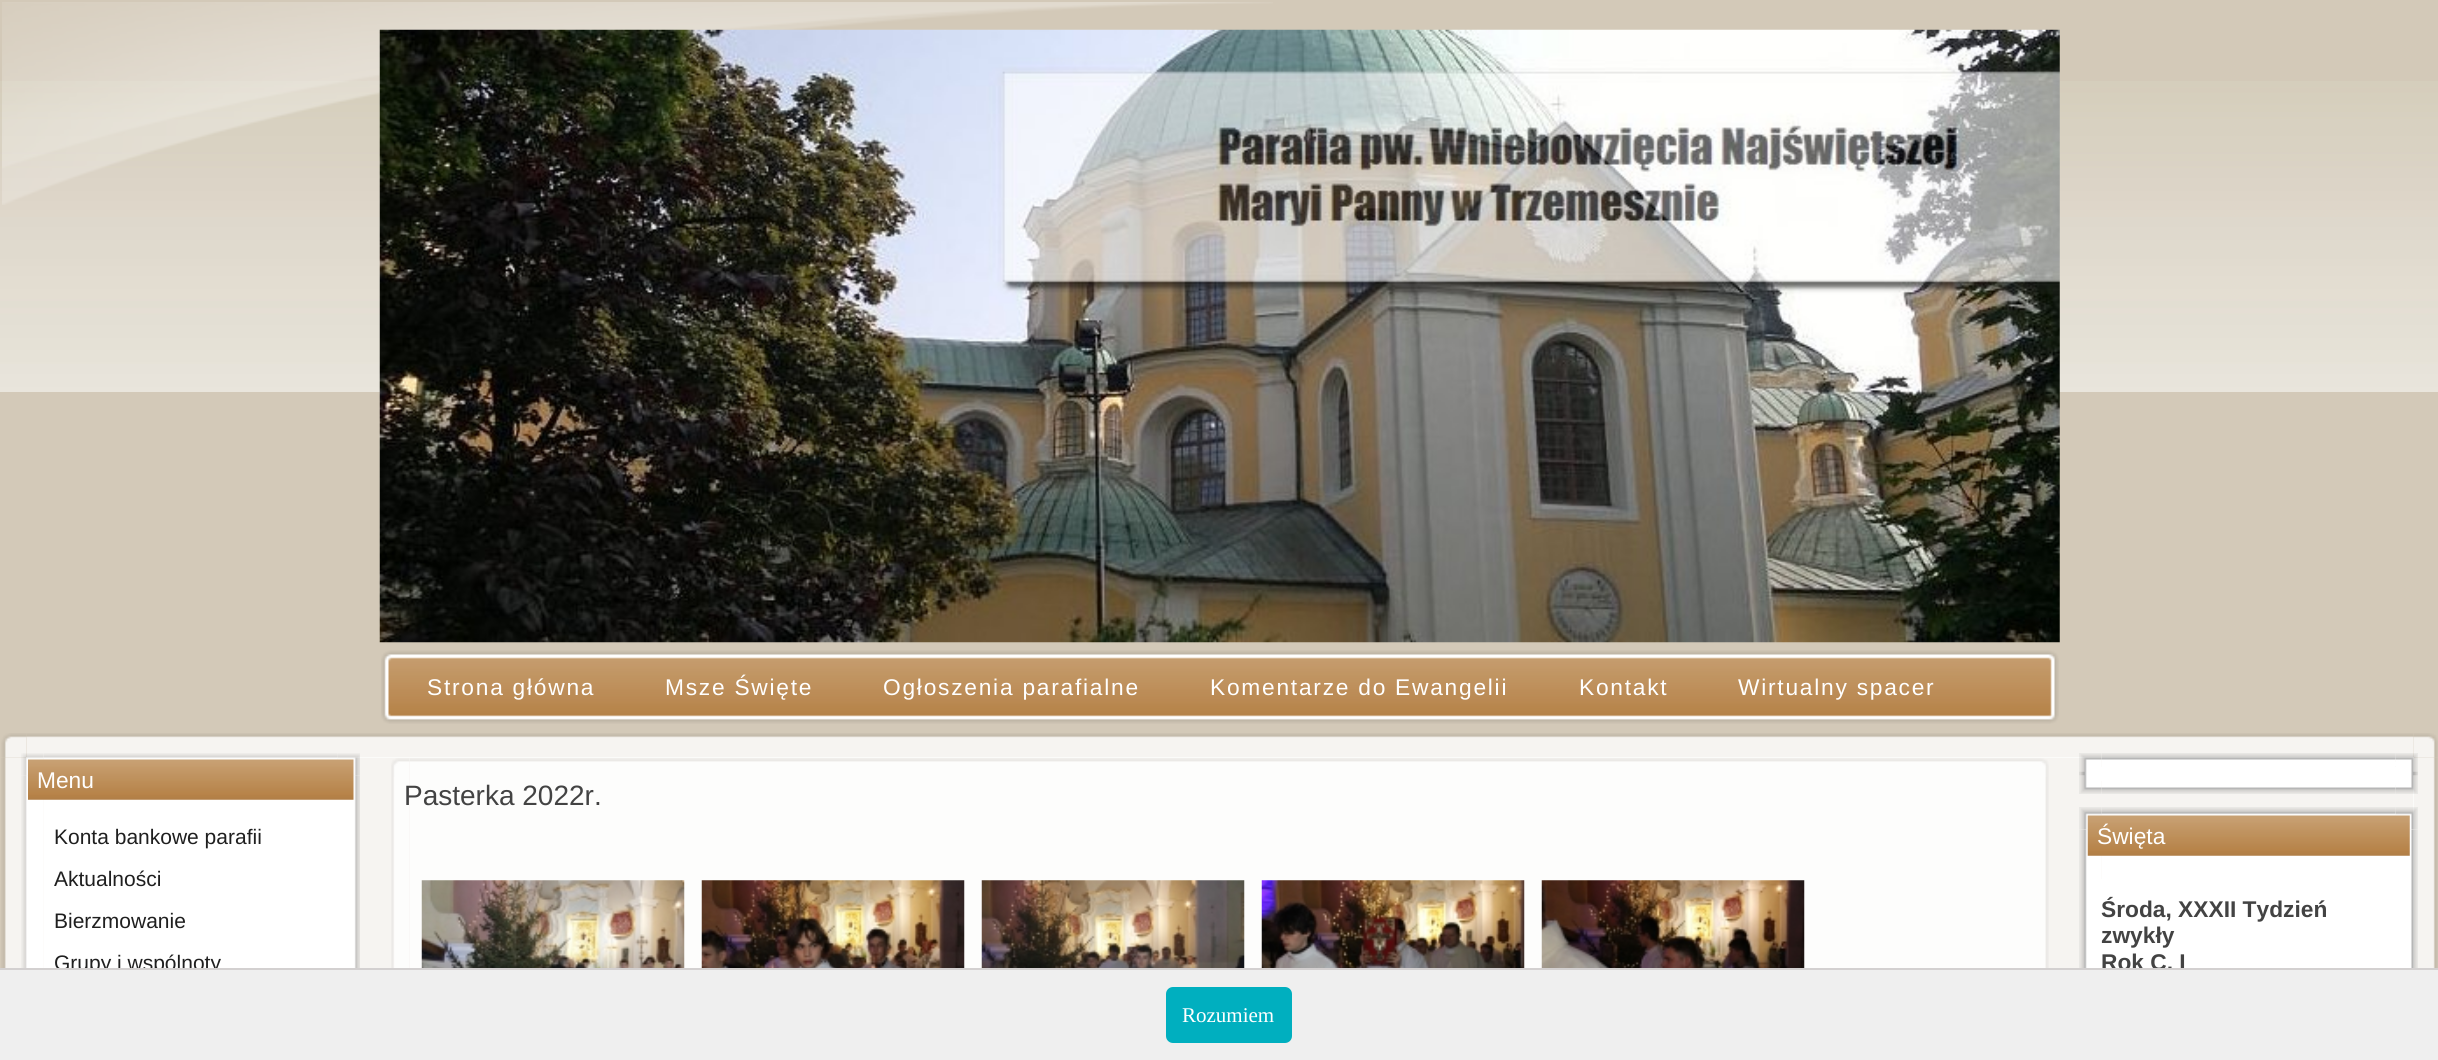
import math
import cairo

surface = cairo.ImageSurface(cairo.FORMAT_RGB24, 2438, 1060)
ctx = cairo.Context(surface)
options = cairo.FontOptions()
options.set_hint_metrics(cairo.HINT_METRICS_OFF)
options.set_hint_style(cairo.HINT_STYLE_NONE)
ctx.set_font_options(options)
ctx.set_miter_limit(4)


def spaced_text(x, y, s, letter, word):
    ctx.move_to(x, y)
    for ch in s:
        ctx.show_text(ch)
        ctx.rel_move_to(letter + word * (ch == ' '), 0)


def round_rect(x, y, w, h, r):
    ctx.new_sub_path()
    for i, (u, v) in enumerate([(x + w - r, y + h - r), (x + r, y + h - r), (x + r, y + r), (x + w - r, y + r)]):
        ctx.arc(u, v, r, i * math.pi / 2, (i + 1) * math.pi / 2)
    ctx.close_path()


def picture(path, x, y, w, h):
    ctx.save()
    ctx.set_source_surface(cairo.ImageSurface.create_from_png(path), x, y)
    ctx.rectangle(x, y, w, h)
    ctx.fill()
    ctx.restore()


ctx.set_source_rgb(0.827, 0.788, 0.722)
ctx.paint()
picture("img1.png", 0, 81, 2438, 311)
picture("img2.png", 2, 2, 1271, 203)
picture("img3.png", 379, 29, 1681, 614)
picture("img4.png", 381, 650, 1663, 74)
picture("img5.png", 2044, 650, 15, 74)
ctx.select_font_face("Liberation Sans")
ctx.set_font_size(22.75)
ctx.set_source_rgb(1, 1, 1)
spaced_text(427, 695, "Strona główna", 1.75, 0)
spaced_text(665, 695, "Msze Święte", 1.75, 0)
spaced_text(883, 695, "Ogłoszenia parafialne", 1.75, 0)
spaced_text(1210, 695, "Komentarze do Ewangelii", 1.75, 0)
spaced_text(1579, 695, "Kontakt", 1.75, 0)
spaced_text(1738, 695, "Wirtualny spacer", 1.75, 0)
picture("img6.png", 1, 733, 26, 25)
picture("img7.png", 26, 733, 2387, 25)
picture("img8.png", 2413, 733, 25, 25)
picture("img9.png", 1, 758, 26, 210)
picture("img10.png", 2413, 758, 25, 210)
ctx.set_source_rgba(1, 1, 1, 0.8)
ctx.rectangle(26, 757, 2388, 211)
ctx.fill()
picture("img11.png", 21, 753, 23, 23)
picture("img13.png", 337, 753, 23, 23)
picture("img12.png", 44, 753, 294, 7)
picture("img14.png", 21, 775, 23, 193)
picture("img16.png", 338, 775, 22, 193)
ctx.set_source_rgb(1, 1, 1)
ctx.rectangle(44, 799, 294, 169)
ctx.fill()
picture("img15.png", 28, 759, 326, 41)
ctx.move_to(37, 788)
ctx.show_text("Menu")
ctx.set_font_size(21)
ctx.set_source_rgb(0.122, 0.122, 0.122)
ctx.move_to(54, 844)
ctx.show_text("Konta bankowe parafii")
ctx.move_to(54, 886)
ctx.show_text("Aktualności")
ctx.move_to(54, 928)
ctx.show_text("Bierzmowanie")
ctx.move_to(54, 970)
ctx.show_text("Grupy i wspólnoty")
picture("img17.png", 391, 758, 19, 19)
picture("img18.png", 410, 758, 1620, 19)
picture("img19.png", 2030, 758, 19, 19)
picture("img20.png", 391, 777, 19, 191)
ctx.set_source_rgb(0.992, 0.992, 0.988)
ctx.rectangle(410, 777, 1620, 191)
ctx.fill()
picture("img21.png", 2030, 777, 19, 191)
ctx.set_font_size(28)
ctx.set_source_rgb(0.263, 0.263, 0.263)
ctx.move_to(404, 805)
ctx.show_text("Pasterka 2022r.")
picture("img22.png", 421, 880, 264, 88)
picture("img23.png", 701, 880, 264, 88)
picture("img24.png", 981, 880, 264, 88)
picture("img25.png", 1261, 880, 264, 88)
picture("img26.png", 1541, 880, 264, 88)
picture("img27.png", 2079, 753, 23, 23)
picture("img29.png", 2395, 753, 23, 23)
picture("img28.png", 2102, 753, 294, 14)
picture("img30.png", 2079, 771, 23, 23)
ctx.set_source_rgb(1, 1, 1)
ctx.rectangle(2395, 762, 1, 4)
ctx.fill()
picture("img31.png", 2395, 771, 23, 23)
ctx.rectangle(2101, 767, 295, 14)
ctx.fill()
picture("img32.png", 2102, 781, 294, 13)
ctx.rectangle(2395, 781, 1, 4)
ctx.fill()
picture("img33.png", 2079, 807, 23, 23)
picture("img35.png", 2395, 807, 23, 23)
picture("img34.png", 2102, 807, 294, 9)
picture("img36.png", 2079, 829, 23, 139)
picture("img38.png", 2396, 829, 22, 139)
ctx.rectangle(2102, 855, 294, 24)
ctx.fill()
picture("img37.png", 2087, 815, 323, 41)
ctx.set_font_size(22.75)
ctx.move_to(2097, 844)
ctx.show_text("Święta")
ctx.rectangle(2101, 879, 295, 89)
ctx.fill()
ctx.select_font_face("Liberation Sans", cairo.FONT_SLANT_NORMAL, cairo.FONT_WEIGHT_BOLD)
ctx.set_source_rgb(0.263, 0.263, 0.263)
ctx.move_to(2101, 917)
ctx.show_text("Środa, XXXII Tydzień")
ctx.move_to(2101, 943)
ctx.show_text("zwykły")
ctx.move_to(2101, 970)
ctx.show_text("Rok C, I")
ctx.set_source_rgb(0.937, 0.937, 0.937)
ctx.rectangle(0, 970, 2438, 90)
ctx.fill()
ctx.set_source_rgb(0.827, 0.816, 0.816)
ctx.rectangle(0, 968, 2438, 2)
ctx.fill()
ctx.set_source_rgb(0, 0.686, 0.749)
round_rect(1166, 987, 126, 56, 7)
ctx.fill()
ctx.select_font_face("Liberation Serif")
ctx.set_font_size(21)
ctx.set_source_rgb(1, 1, 1)
ctx.move_to(1182, 1022)
ctx.show_text("Rozumiem")
surface.write_to_png("page.png")
